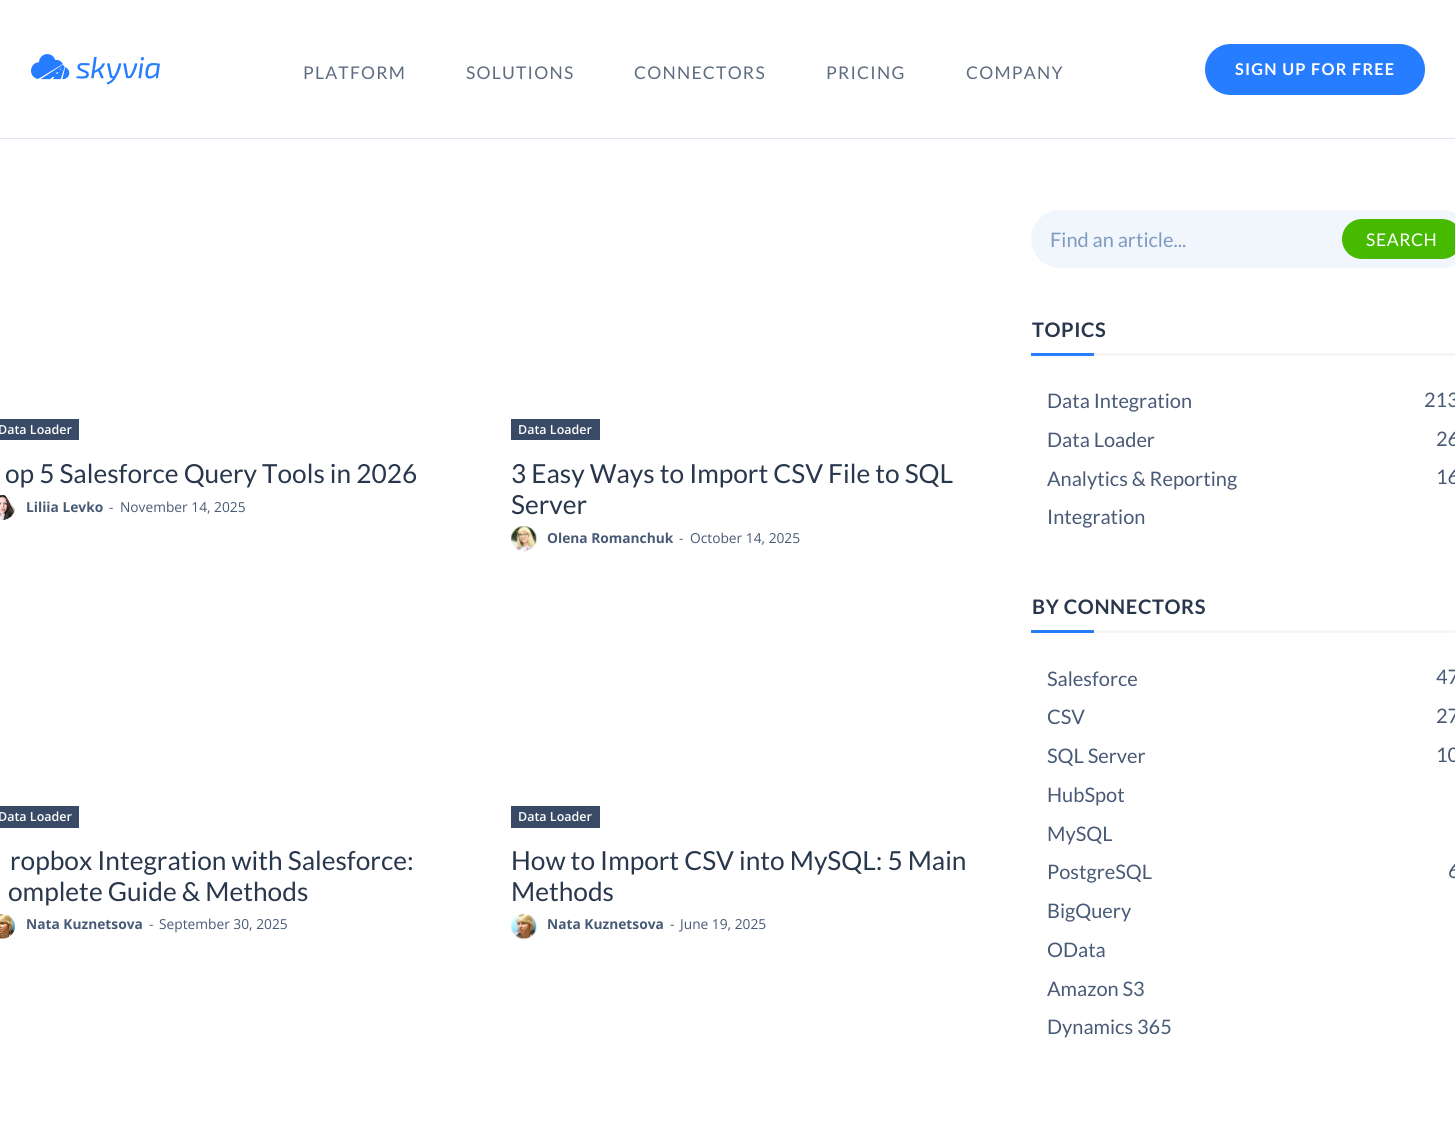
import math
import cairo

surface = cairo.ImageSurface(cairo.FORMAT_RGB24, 1455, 1139)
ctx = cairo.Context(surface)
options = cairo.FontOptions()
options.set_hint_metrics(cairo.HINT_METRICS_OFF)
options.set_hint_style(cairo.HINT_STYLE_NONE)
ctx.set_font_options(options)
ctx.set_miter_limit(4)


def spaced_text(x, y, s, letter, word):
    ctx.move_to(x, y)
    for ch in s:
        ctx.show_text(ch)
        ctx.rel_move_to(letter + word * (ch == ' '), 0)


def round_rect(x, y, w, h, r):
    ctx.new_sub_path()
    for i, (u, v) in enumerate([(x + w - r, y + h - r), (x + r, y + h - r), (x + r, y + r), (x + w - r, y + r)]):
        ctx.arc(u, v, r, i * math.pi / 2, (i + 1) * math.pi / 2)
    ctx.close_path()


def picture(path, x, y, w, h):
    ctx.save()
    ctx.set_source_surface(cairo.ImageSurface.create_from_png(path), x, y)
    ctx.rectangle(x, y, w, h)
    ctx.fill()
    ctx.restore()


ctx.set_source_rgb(1, 1, 1)
ctx.paint()
ctx.set_source_rgb(0.863, 0.898, 0.949)
ctx.rectangle(0, 138, 1455, 1)
ctx.fill()
picture("img1.png", 31, 54, 129, 31)
ctx.select_font_face("Lato")
ctx.set_font_size(17.5)
ctx.set_source_rgb(0.369, 0.424, 0.502)
spaced_text(303, 79, "PLATFORM", 1.25, 0)
spaced_text(466, 79, "SOLUTIONS", 1.25, 0)
spaced_text(634, 79, "CONNECTORS", 1.25, 0)
spaced_text(826, 79, "PRICING", 1.25, 0)
spaced_text(966, 79, "COMPANY", 1.25, 0)
ctx.set_source_rgb(0.153, 0.49, 1)
round_rect(1205, 44, 220, 51, 25.5)
ctx.fill()
ctx.select_font_face("Lato", cairo.FONT_SLANT_NORMAL, cairo.FONT_WEIGHT_BOLD)
ctx.set_font_size(16.25)
ctx.set_source_rgb(1, 1, 1)
spaced_text(1235, 75, "SIGN UP FOR FREE", 1.25, 0)
ctx.set_source_rgb(0.22, 0.29, 0.4)
ctx.rectangle(0, 419, 79, 21)
ctx.fill()
ctx.select_font_face("Open Sans SemiBold")
ctx.set_font_size(12.5)
ctx.set_source_rgb(1, 1, 1)
ctx.move_to(-2, 434)
ctx.show_text("Data Loader")
ctx.select_font_face("Lato")
ctx.set_font_size(26.25)
ctx.set_source_rgb(0.161, 0.216, 0.302)
ctx.move_to(5, 483)
ctx.show_text("op 5 Salesforce Query Tools in 2026")
picture("img2.png", 0, 495, 15, 25)
ctx.select_font_face("Open Sans", cairo.FONT_SLANT_NORMAL, cairo.FONT_WEIGHT_BOLD)
ctx.set_font_size(13.75)
ctx.set_source_rgb(0.282, 0.353, 0.463)
ctx.move_to(26, 512)
ctx.show_text("Liliia Levkо")
ctx.select_font_face("Open Sans")
ctx.move_to(109, 512)
ctx.show_text("-")
ctx.move_to(120, 512)
ctx.show_text("November 14, 2025")
ctx.set_source_rgb(0.22, 0.29, 0.4)
ctx.rectangle(511, 419, 89, 21)
ctx.fill()
ctx.select_font_face("Open Sans SemiBold")
ctx.set_font_size(12.5)
ctx.set_source_rgb(1, 1, 1)
ctx.move_to(518, 434)
ctx.show_text("Data Loader")
ctx.select_font_face("Lato")
ctx.set_font_size(26.25)
ctx.set_source_rgb(0.161, 0.216, 0.302)
ctx.move_to(511, 483)
ctx.show_text("3 Easy Ways to Import CSV File to SQL")
ctx.move_to(511, 514)
ctx.show_text("Server")
picture("img3.png", 511, 526, 26, 26)
ctx.select_font_face("Open Sans", cairo.FONT_SLANT_NORMAL, cairo.FONT_WEIGHT_BOLD)
ctx.set_font_size(13.75)
ctx.set_source_rgb(0.282, 0.353, 0.463)
ctx.move_to(547, 543)
ctx.show_text("Olena Romanchuk")
ctx.select_font_face("Open Sans")
ctx.move_to(679, 543)
ctx.show_text("-")
ctx.move_to(690, 543)
ctx.show_text("October 14, 2025")
ctx.set_source_rgb(0.22, 0.29, 0.4)
ctx.rectangle(0, 806, 79, 22)
ctx.fill()
ctx.select_font_face("Open Sans SemiBold")
ctx.set_font_size(12.5)
ctx.set_source_rgb(1, 1, 1)
ctx.move_to(-2, 821)
ctx.show_text("Data Loader")
ctx.select_font_face("Lato")
ctx.set_font_size(26.25)
ctx.set_source_rgb(0.161, 0.216, 0.302)
ctx.move_to(10, 870)
ctx.show_text("ropbox Integration with Salesforce:")
ctx.move_to(8, 901)
ctx.show_text("omplete Guide & Methods")
picture("img4.png", 0, 914, 15, 25)
ctx.select_font_face("Open Sans", cairo.FONT_SLANT_NORMAL, cairo.FONT_WEIGHT_BOLD)
ctx.set_font_size(13.75)
ctx.set_source_rgb(0.282, 0.353, 0.463)
ctx.move_to(26, 929)
ctx.show_text("Nata Kuznetsova")
ctx.select_font_face("Open Sans")
ctx.move_to(149, 929)
ctx.show_text("-")
ctx.move_to(159, 929)
ctx.show_text("September 30, 2025")
ctx.set_source_rgb(0.22, 0.29, 0.4)
ctx.rectangle(511, 806, 89, 22)
ctx.fill()
ctx.select_font_face("Open Sans SemiBold")
ctx.set_font_size(12.5)
ctx.set_source_rgb(1, 1, 1)
ctx.move_to(518, 821)
ctx.show_text("Data Loader")
ctx.select_font_face("Lato")
ctx.set_font_size(26.25)
ctx.set_source_rgb(0.161, 0.216, 0.302)
ctx.move_to(511, 870)
ctx.show_text("How to Import CSV into MySQL: 5 Main")
ctx.move_to(511, 901)
ctx.show_text("Methods")
picture("img5.png", 511, 913, 26, 27)
ctx.select_font_face("Open Sans", cairo.FONT_SLANT_NORMAL, cairo.FONT_WEIGHT_BOLD)
ctx.set_font_size(13.75)
ctx.set_source_rgb(0.282, 0.353, 0.463)
ctx.move_to(547, 929)
ctx.show_text("Nata Kuznetsova")
ctx.select_font_face("Open Sans")
ctx.move_to(670, 929)
ctx.show_text("-")
ctx.move_to(680, 929)
ctx.show_text("June 19, 2025")
ctx.set_source_rgb(0.941, 0.961, 0.988)
round_rect(1031.5, 210.5, 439, 57, 28.5)
ctx.fill_preserve()
ctx.set_line_width(1)
ctx.stroke()
ctx.select_font_face("Lato")
ctx.set_font_size(20)
ctx.set_source_rgb(0.498, 0.604, 0.757)
ctx.move_to(1050, 247)
ctx.show_text("Find an article...")
ctx.set_source_rgb(0.278, 0.729, 0)
round_rect(1337.5, 214.5, 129, 49, 24.5)
ctx.fill_preserve()
ctx.set_source_rgb(0.941, 0.961, 0.988)
ctx.set_line_width(9)
ctx.stroke()
ctx.set_font_size(17.5)
ctx.set_source_rgb(1, 1, 1)
spaced_text(1366, 246, "SEARCH", 0.6, 0)
ctx.select_font_face("Lato", cairo.FONT_SLANT_NORMAL, cairo.FONT_WEIGHT_BOLD)
ctx.set_font_size(20)
ctx.set_source_rgb(0.161, 0.216, 0.302)
spaced_text(1032, 337, "TOPICS", 0.6, 0)
ctx.set_source_rgb(0.153, 0.49, 1)
ctx.rectangle(1031, 353, 63, 3)
ctx.fill()
ctx.set_source_rgb(0.961, 0.961, 0.961)
ctx.rectangle(1094, 353, 361, 3)
ctx.fill()
ctx.select_font_face("Lato")
ctx.set_source_rgb(0.282, 0.353, 0.463)
ctx.move_to(1047, 408)
ctx.show_text("Data Integration")
ctx.move_to(1424, 407)
ctx.show_text("213")
ctx.move_to(1047, 447)
ctx.show_text("Data Loader")
ctx.move_to(1436, 446)
ctx.show_text("26")
ctx.move_to(1047, 486)
ctx.show_text("Analytics & Reporting")
ctx.move_to(1436, 484)
ctx.show_text("16")
ctx.move_to(1047, 524)
ctx.show_text("Integration")
ctx.select_font_face("Lato", cairo.FONT_SLANT_NORMAL, cairo.FONT_WEIGHT_BOLD)
ctx.set_source_rgb(0.161, 0.216, 0.302)
spaced_text(1032, 614, "BY CONNECTORS", 0.6, 0)
ctx.set_source_rgb(0.153, 0.49, 1)
ctx.rectangle(1031, 630, 63, 3)
ctx.fill()
ctx.set_source_rgb(0.961, 0.961, 0.961)
ctx.rectangle(1094, 630, 361, 3)
ctx.fill()
ctx.select_font_face("Lato")
ctx.set_source_rgb(0.282, 0.353, 0.463)
ctx.move_to(1047, 686)
ctx.show_text("Salesforce")
ctx.move_to(1436, 684)
ctx.show_text("47")
ctx.move_to(1047, 724)
ctx.show_text("CSV")
ctx.move_to(1436, 723)
ctx.show_text("27")
ctx.move_to(1047, 763)
ctx.show_text("SQL Server")
ctx.move_to(1436, 762)
ctx.show_text("10")
ctx.move_to(1047, 802)
ctx.show_text("HubSpot")
ctx.move_to(1047, 841)
ctx.show_text("MySQL")
ctx.move_to(1047, 879)
ctx.show_text("PostgreSQL")
ctx.move_to(1448, 878)
ctx.show_text("6")
ctx.move_to(1047, 918)
ctx.show_text("BigQuery")
ctx.move_to(1047, 957)
ctx.show_text("OData")
ctx.move_to(1047, 996)
ctx.show_text("Amazon S3")
ctx.move_to(1047, 1034)
ctx.show_text("Dynamics 365")
surface.write_to_png("page.png")
